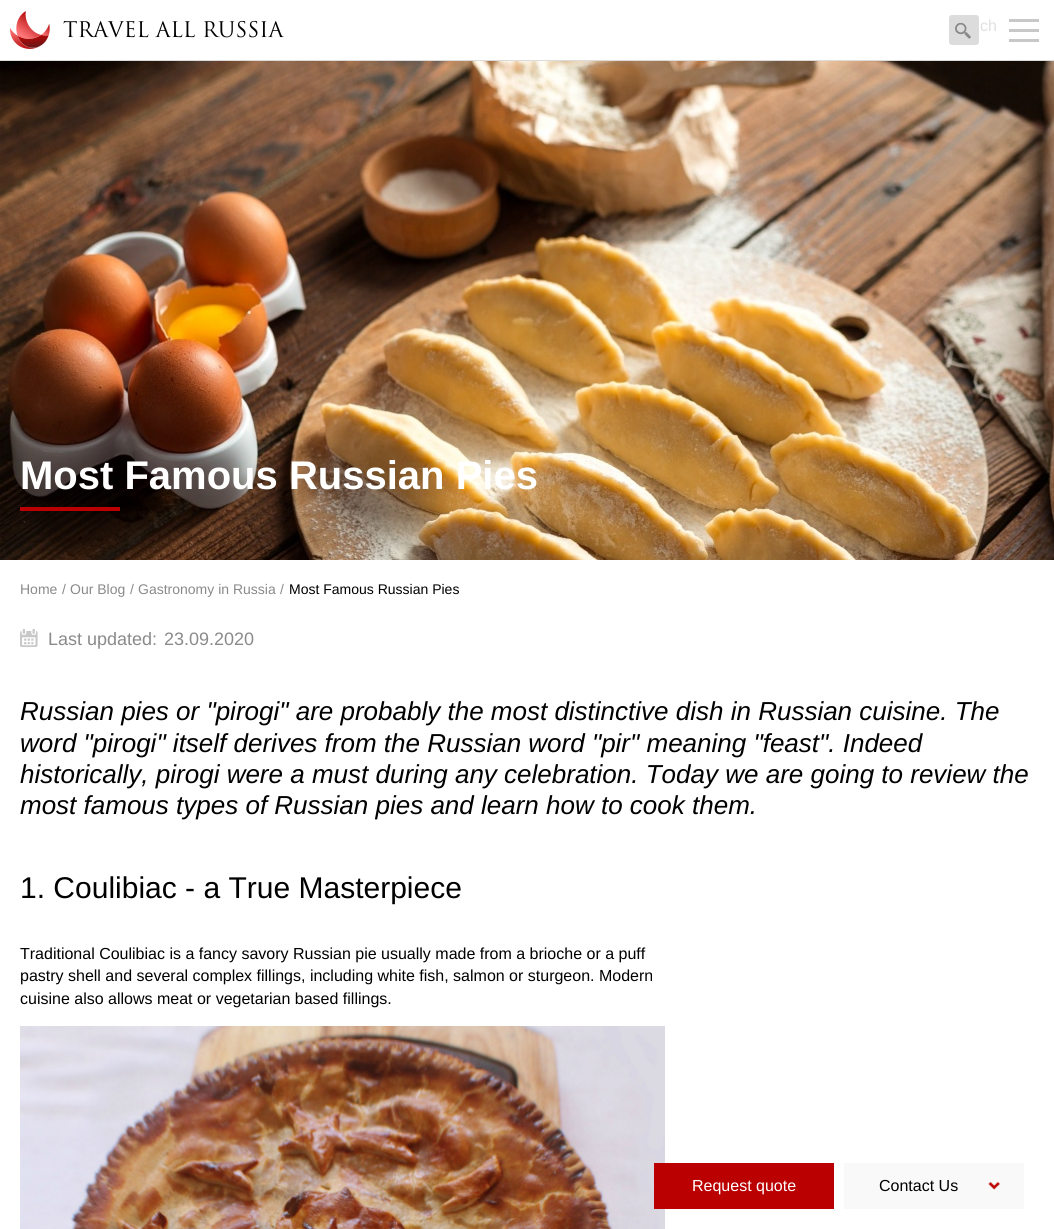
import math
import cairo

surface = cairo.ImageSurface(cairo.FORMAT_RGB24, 1054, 1229)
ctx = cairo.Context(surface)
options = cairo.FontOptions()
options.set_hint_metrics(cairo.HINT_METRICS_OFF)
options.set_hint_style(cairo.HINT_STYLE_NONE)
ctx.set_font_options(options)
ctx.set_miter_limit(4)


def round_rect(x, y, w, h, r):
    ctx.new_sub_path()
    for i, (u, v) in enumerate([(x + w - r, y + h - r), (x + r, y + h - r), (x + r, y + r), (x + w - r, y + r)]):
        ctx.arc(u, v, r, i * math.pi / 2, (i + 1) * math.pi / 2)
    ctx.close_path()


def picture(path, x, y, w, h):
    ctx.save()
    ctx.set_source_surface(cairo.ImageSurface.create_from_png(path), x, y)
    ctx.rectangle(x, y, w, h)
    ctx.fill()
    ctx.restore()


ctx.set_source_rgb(1, 1, 1)
ctx.paint()
ctx.set_source_rgb(0.863, 0.863, 0.863)
ctx.rectangle(0, 60, 1054, 1)
ctx.fill()
picture("img1.png", 10, 11, 40, 38)
picture("img2.png", 63, 20, 221, 18)
round_rect(949, 15, 30, 30, 3)
ctx.fill()
picture("img3.png", 955, 22, 16, 17)
ctx.select_font_face("Liberation Sans")
ctx.set_font_size(16)
ctx.set_source_rgb(0.878, 0.878, 0.878)
ctx.move_to(980, 31)
ctx.show_text("ch")
picture("img4.png", 1009, 19, 30, 23)
picture("img5.png", 0, 61, 1054, 499)
ctx.select_font_face("Liberation Sans", cairo.FONT_SLANT_NORMAL, cairo.FONT_WEIGHT_BOLD)
ctx.set_font_size(40)
ctx.set_source_rgb(1, 1, 1)
ctx.move_to(20, 489)
ctx.show_text("Most Famous Russian Pies")
ctx.set_source_rgb(0.729, 0, 0)
ctx.rectangle(20, 507, 100, 4)
ctx.fill()
ctx.select_font_face("Liberation Sans")
ctx.set_font_size(14)
ctx.set_source_rgb(0.541, 0.541, 0.541)
ctx.move_to(20, 594)
ctx.show_text("Home")
ctx.move_to(62, 594)
ctx.show_text("/")
ctx.move_to(70, 594)
ctx.show_text("Our Blog")
ctx.move_to(130, 594)
ctx.show_text("/")
ctx.move_to(138, 594)
ctx.show_text("Gastronomy in Russia")
ctx.move_to(280, 594)
ctx.show_text("/")
ctx.set_source_rgb(0, 0, 0)
ctx.move_to(289, 594)
ctx.show_text("Most Famous Russian Pies")
picture("img6.png", 20, 629, 18, 18)
ctx.set_font_size(18)
ctx.set_source_rgb(0.541, 0.541, 0.541)
ctx.move_to(48, 645)
ctx.show_text("Last updated:")
ctx.move_to(164, 645)
ctx.show_text("23.09.2020")
ctx.select_font_face("Liberation Sans", cairo.FONT_SLANT_ITALIC)
ctx.set_font_size(26)
ctx.set_source_rgb(0, 0, 0)
ctx.move_to(20, 720)
ctx.show_text("Russian pies or \"pirogi\" are probably the most distinctive dish in Russian cuisine. The")
ctx.move_to(20, 752)
ctx.show_text("word \"pirogi\" itself derives from the Russian word \"pir\" meaning \"feast\". Indeed")
ctx.move_to(20, 783)
ctx.show_text("historically, pirogi were a must during any celebration. Today we are going to review the")
ctx.move_to(20, 814)
ctx.show_text("most famous types of Russian pies and learn how to cook them.")
ctx.select_font_face("Liberation Sans")
ctx.set_font_size(30)
ctx.move_to(20, 898)
ctx.show_text("1. Coulibiac - a True Masterpiece")
ctx.set_font_size(16)
ctx.move_to(20, 959)
ctx.show_text("Traditional Coulibiac is a fancy savory Russian pie usually made from a brioche or a puff")
ctx.move_to(20, 981)
ctx.show_text("pastry shell and several complex fillings, including white fish, salmon or sturgeon. Modern")
ctx.move_to(20, 1004)
ctx.show_text("cuisine also allows meat or vegetarian based fillings.")
picture("img7.png", 20, 1026, 645, 203)
ctx.set_source_rgb(0.729, 0, 0)
ctx.rectangle(654, 1163, 180, 46)
ctx.fill()
ctx.set_source_rgb(1, 1, 1)
ctx.move_to(692, 1191)
ctx.show_text("Request quote")
ctx.set_source_rgb(0.973, 0.973, 0.973)
ctx.rectangle(844, 1163, 180, 46)
ctx.fill()
ctx.set_source_rgb(0, 0, 0)
ctx.move_to(879, 1191)
ctx.show_text("Contact Us")
picture("img8.png", 988, 1182, 12, 8)
surface.write_to_png("page.png")
